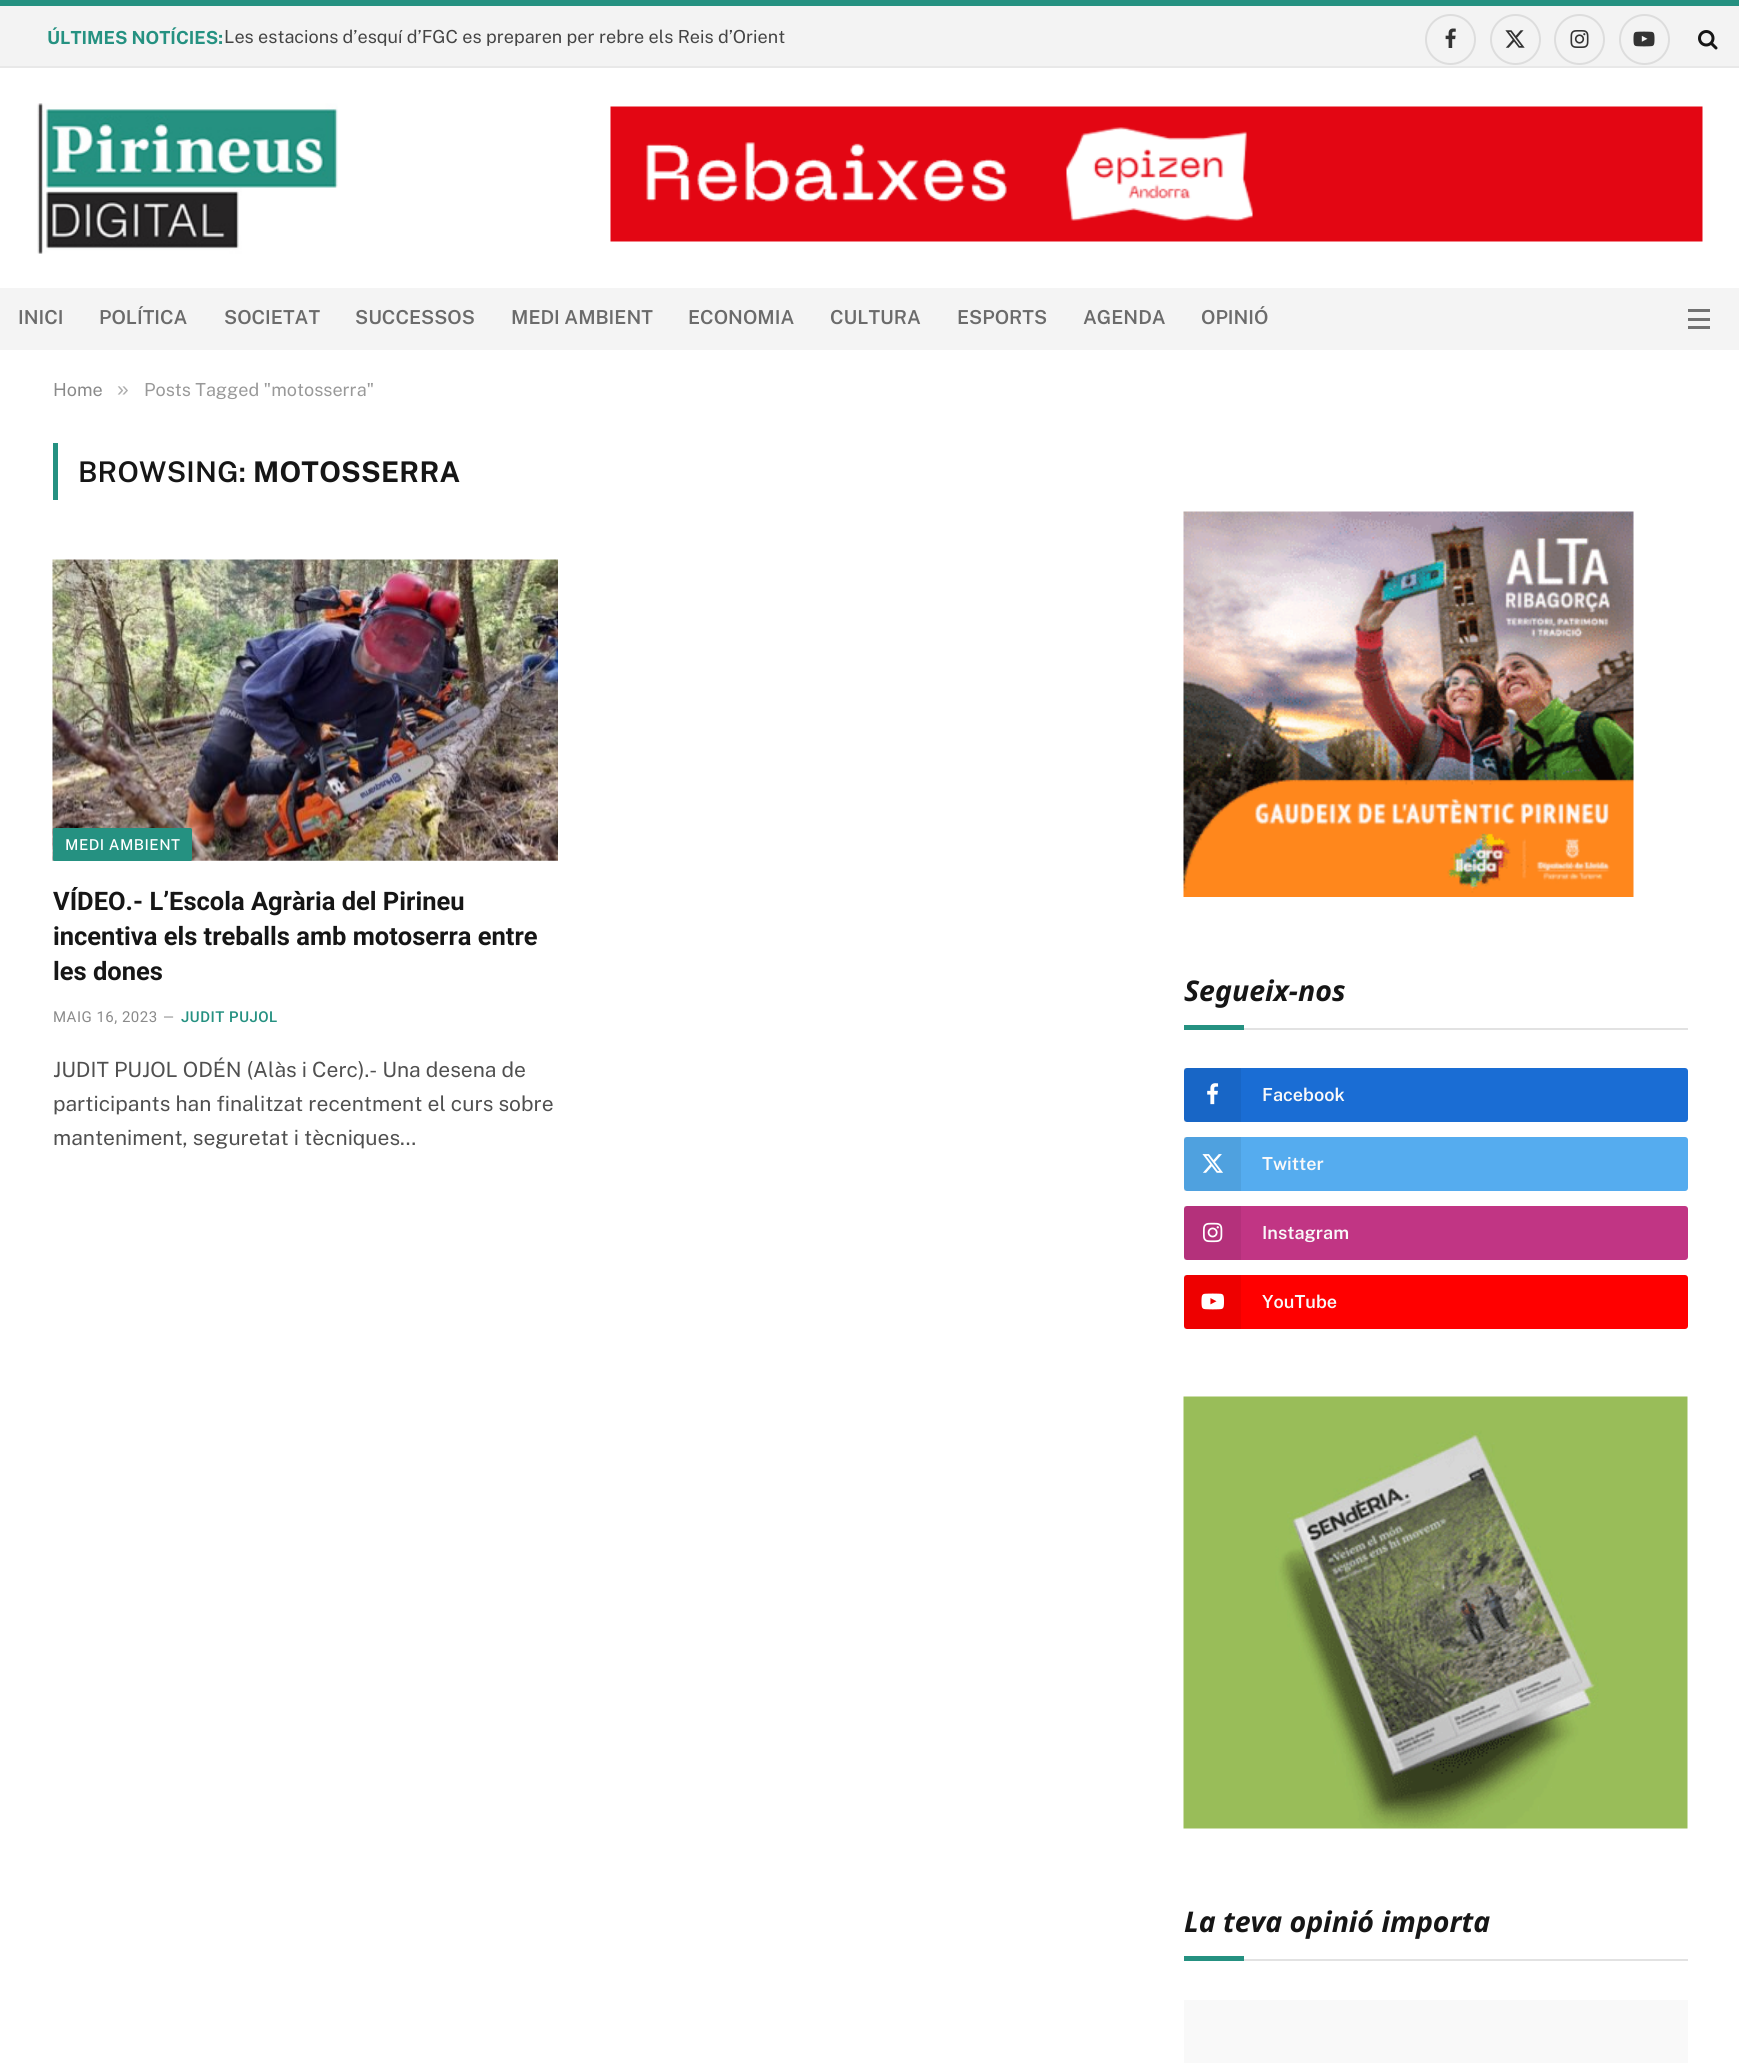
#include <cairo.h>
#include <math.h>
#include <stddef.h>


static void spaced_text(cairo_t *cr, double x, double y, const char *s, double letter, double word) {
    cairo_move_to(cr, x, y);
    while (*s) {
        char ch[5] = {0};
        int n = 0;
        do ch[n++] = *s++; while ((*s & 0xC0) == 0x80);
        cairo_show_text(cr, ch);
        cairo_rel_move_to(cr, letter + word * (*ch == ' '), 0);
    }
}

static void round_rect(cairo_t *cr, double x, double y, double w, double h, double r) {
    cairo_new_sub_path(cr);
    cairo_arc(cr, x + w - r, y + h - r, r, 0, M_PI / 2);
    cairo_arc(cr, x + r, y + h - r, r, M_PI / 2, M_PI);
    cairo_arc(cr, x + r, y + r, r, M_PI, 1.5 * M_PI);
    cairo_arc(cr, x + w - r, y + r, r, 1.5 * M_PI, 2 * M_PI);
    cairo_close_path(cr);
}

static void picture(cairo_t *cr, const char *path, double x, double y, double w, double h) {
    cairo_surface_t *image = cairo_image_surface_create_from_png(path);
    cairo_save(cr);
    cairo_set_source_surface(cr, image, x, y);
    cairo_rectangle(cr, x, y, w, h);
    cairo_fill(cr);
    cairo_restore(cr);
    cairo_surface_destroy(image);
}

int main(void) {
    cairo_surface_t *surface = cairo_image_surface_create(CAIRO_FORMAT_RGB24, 1739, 2063);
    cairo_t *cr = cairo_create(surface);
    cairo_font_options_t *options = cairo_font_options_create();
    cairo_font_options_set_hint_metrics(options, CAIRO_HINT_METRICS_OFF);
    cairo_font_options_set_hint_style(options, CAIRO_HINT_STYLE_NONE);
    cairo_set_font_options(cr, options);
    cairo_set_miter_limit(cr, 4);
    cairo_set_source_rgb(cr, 1, 1, 1);
    cairo_paint(cr);
    cairo_set_source_rgb(cr, 0.953, 0.953, 0.953);
    cairo_rectangle(cr, 0, 6, 1739, 60);
    cairo_fill(cr);
    cairo_set_source_rgb(cr, 0.145, 0.569, 0.506);
    cairo_rectangle(cr, 0, 0, 1739, 6);
    cairo_fill(cr);
    cairo_set_source_rgb(cr, 0.91, 0.91, 0.91);
    cairo_rectangle(cr, 0, 66, 1739, 2);
    cairo_fill(cr);
    cairo_select_font_face(cr, "Public Sans", CAIRO_FONT_SLANT_NORMAL, CAIRO_FONT_WEIGHT_BOLD);
    cairo_set_font_size(cr, 18);
    cairo_set_source_rgb(cr, 0.145, 0.569, 0.506);
    cairo_move_to(cr, 47, 44);
    cairo_show_text(cr, "ÚLTIMES NOTÍCIES:");
    cairo_select_font_face(cr, "Public Sans", CAIRO_FONT_SLANT_NORMAL, CAIRO_FONT_WEIGHT_NORMAL);
    cairo_set_source_rgb(cr, 0.267, 0.267, 0.267);
    cairo_move_to(cr, 224, 43);
    cairo_show_text(cr, "Les estacions d’esquí d’FGC es preparen per rebre els Reis d’Orient");
    cairo_new_path(cr);
    cairo_arc(cr, 1450.5, 39.5, 24.5, 0, 2 * M_PI);
    cairo_set_source_rgb(cr, 0.867, 0.867, 0.867);
    cairo_stroke(cr);
    picture(cr, "img1.png", 1445, 28, 11, 20);
    cairo_arc(cr, 1515.5, 39.5, 24.5, 0, 2 * M_PI);
    cairo_stroke(cr);
    picture(cr, "img2.png", 1505, 30, 20, 18);
    cairo_arc(cr, 1579.5, 39.5, 24.5, 0, 2 * M_PI);
    cairo_stroke(cr);
    picture(cr, "img3.png", 1570, 30, 19, 18);
    cairo_arc(cr, 1644.5, 39.5, 24.5, 0, 2 * M_PI);
    cairo_stroke(cr);
    picture(cr, "img4.png", 1633, 31, 22, 16);
    picture(cr, "img5.png", 1698, 30, 20, 20);
    picture(cr, "img6.png", 37, 103, 301, 151);
    picture(cr, "img7.png", 610, 106, 1093, 136);
    cairo_set_source_rgb(cr, 0.957, 0.957, 0.957);
    cairo_rectangle(cr, 0, 288, 1739, 62);
    cairo_fill(cr);
    cairo_select_font_face(cr, "Public Sans SemiBold", CAIRO_FONT_SLANT_NORMAL, CAIRO_FONT_WEIGHT_NORMAL);
    cairo_set_font_size(cr, 19.25);
    cairo_set_source_rgb(cr, 0.42, 0.42, 0.42);
    cairo_move_to(cr, 18, 324);
    cairo_show_text(cr, "INICI");
    cairo_move_to(cr, 99, 324);
    cairo_show_text(cr, "POLÍTICA");
    cairo_move_to(cr, 224, 324);
    cairo_show_text(cr, "SOCIETAT");
    cairo_move_to(cr, 355, 324);
    cairo_show_text(cr, "SUCCESSOS");
    cairo_move_to(cr, 511, 324);
    cairo_show_text(cr, "MEDI AMBIENT");
    cairo_move_to(cr, 688, 324);
    cairo_show_text(cr, "ECONOMIA");
    cairo_move_to(cr, 830, 324);
    cairo_show_text(cr, "CULTURA");
    cairo_move_to(cr, 957, 324);
    cairo_show_text(cr, "ESPORTS");
    cairo_move_to(cr, 1083, 324);
    cairo_show_text(cr, "AGENDA");
    cairo_move_to(cr, 1201, 324);
    cairo_show_text(cr, "OPINIÓ");
    cairo_set_source_rgb(cr, 0.447, 0.447, 0.447);
    cairo_rectangle(cr, 1688, 326, 22, 3);
    cairo_fill(cr);
    cairo_rectangle(cr, 1688, 309, 22, 3);
    cairo_fill(cr);
    cairo_rectangle(cr, 1688, 318, 22, 3);
    cairo_fill(cr);
    cairo_select_font_face(cr, "Public Sans", CAIRO_FONT_SLANT_NORMAL, CAIRO_FONT_WEIGHT_NORMAL);
    cairo_set_font_size(cr, 18);
    cairo_set_source_rgb(cr, 0.541, 0.541, 0.541);
    cairo_move_to(cr, 53, 396);
    cairo_show_text(cr, "Home");
    cairo_select_font_face(cr, "Liberation Sans", CAIRO_FONT_SLANT_NORMAL, CAIRO_FONT_WEIGHT_NORMAL);
    cairo_set_font_size(cr, 21);
    cairo_set_source_rgb(cr, 0.678, 0.678, 0.678);
    cairo_move_to(cr, 117, 396);
    cairo_show_text(cr, "»");
    cairo_select_font_face(cr, "Public Sans", CAIRO_FONT_SLANT_NORMAL, CAIRO_FONT_WEIGHT_NORMAL);
    cairo_set_font_size(cr, 18);
    cairo_set_source_rgb(cr, 0.6, 0.6, 0.6);
    cairo_move_to(cr, 144, 396);
    cairo_show_text(cr, "Posts Tagged \"motosserra\"");
    cairo_set_source_rgb(cr, 0.145, 0.569, 0.506);
    cairo_rectangle(cr, 53, 443, 5, 57);
    cairo_fill(cr);
    cairo_select_font_face(cr, "Public Sans SemiBold", CAIRO_FONT_SLANT_NORMAL, CAIRO_FONT_WEIGHT_NORMAL);
    cairo_set_font_size(cr, 28.5);
    cairo_set_source_rgb(cr, 0.086, 0.086, 0.086);
    spaced_text(cr, 78, 482, "BROWSING:", 0.25, 0);
    cairo_select_font_face(cr, "Public Sans", CAIRO_FONT_SLANT_NORMAL, CAIRO_FONT_WEIGHT_BOLD);
    spaced_text(cr, 253, 482, "MOTOSSERRA", 0.25, 0);
    picture(cr, "img8.png", 52, 559, 506, 302);
    cairo_set_source_rgb(cr, 0.145, 0.569, 0.506);
    round_rect(cr, 53, 828, 139, 33, 1.5);
    cairo_fill(cr);
    cairo_select_font_face(cr, "Public Sans Medium", CAIRO_FONT_SLANT_NORMAL, CAIRO_FONT_WEIGHT_NORMAL);
    cairo_set_font_size(cr, 15);
    cairo_set_source_rgb(cr, 1, 1, 1);
    spaced_text(cr, 65, 850, "MEDI AMBIENT", 0.5, 0);
    cairo_select_font_face(cr, "Roboto", CAIRO_FONT_SLANT_NORMAL, CAIRO_FONT_WEIGHT_BOLD);
    cairo_set_font_size(cr, 25.5);
    cairo_set_source_rgb(cr, 0.086, 0.086, 0.086);
    cairo_move_to(cr, 53, 910);
    cairo_show_text(cr, "VÍDEO.- L’Escola Agrària del Pirineu");
    cairo_move_to(cr, 53, 945);
    cairo_show_text(cr, "incentiva els treballs amb motoserra entre");
    cairo_move_to(cr, 53, 980);
    cairo_show_text(cr, "les dones");
    cairo_select_font_face(cr, "Roboto", CAIRO_FONT_SLANT_NORMAL, CAIRO_FONT_WEIGHT_NORMAL);
    cairo_set_font_size(cr, 15);
    cairo_set_source_rgb(cr, 0.541, 0.541, 0.541);
    spaced_text(cr, 53, 1022, "MAIG 16, 2023", 0.5, 0);
    cairo_set_font_size(cr, 14);
    cairo_move_to(cr, 163, 1022);
    cairo_show_text(cr, "—");
    cairo_select_font_face(cr, "Roboto Medium", CAIRO_FONT_SLANT_NORMAL, CAIRO_FONT_WEIGHT_NORMAL);
    cairo_set_font_size(cr, 15);
    cairo_set_source_rgb(cr, 0.145, 0.569, 0.506);
    spaced_text(cr, 181, 1022, "JUDIT PUJOL", 0.5, 0);
    cairo_select_font_face(cr, "Public Sans", CAIRO_FONT_SLANT_NORMAL, CAIRO_FONT_WEIGHT_NORMAL);
    cairo_set_font_size(cr, 21);
    cairo_set_source_rgb(cr, 0.314, 0.314, 0.314);
    cairo_move_to(cr, 53, 1077);
    cairo_show_text(cr, "JUDIT PUJOL ODÉN (Alàs i Cerc).- Una desena de");
    cairo_move_to(cr, 53, 1111);
    cairo_show_text(cr, "participants han finalitzat recentment el curs sobre");
    cairo_move_to(cr, 53, 1145);
    cairo_show_text(cr, "manteniment, seguretat i tècniques…");
    picture(cr, "img9.png", 1183, 511, 451, 386);
    cairo_set_source_rgb(cr, 0.886, 0.886, 0.886);
    cairo_rectangle(cr, 1244, 1028, 444, 2);
    cairo_fill(cr);
    cairo_select_font_face(cr, "Noto Sans", CAIRO_FONT_SLANT_ITALIC, CAIRO_FONT_WEIGHT_BOLD);
    cairo_set_font_size(cr, 28.5);
    cairo_set_source_rgb(cr, 0.086, 0.086, 0.086);
    cairo_move_to(cr, 1184, 1001);
    cairo_show_text(cr, "Segueix-nos");
    cairo_set_source_rgb(cr, 0.145, 0.569, 0.506);
    cairo_rectangle(cr, 1184, 1025, 60, 5);
    cairo_fill(cr);
    cairo_set_source_rgb(cr, 0.102, 0.427, 0.831);
    round_rect(cr, 1184, 1068, 504, 54, 3);
    cairo_fill(cr);
    cairo_set_source_rgba(cr, 0, 0, 0, 0.07);
    cairo_rectangle(cr, 1184, 1068, 57, 54);
    cairo_fill(cr);
    picture(cr, "img10.png", 1207, 1083, 12, 22);
    cairo_select_font_face(cr, "Public Sans SemiBold", CAIRO_FONT_SLANT_NORMAL, CAIRO_FONT_WEIGHT_NORMAL);
    cairo_set_font_size(cr, 18);
    cairo_set_source_rgb(cr, 0.973, 0.973, 0.973);
    cairo_move_to(cr, 1262, 1101);
    cairo_show_text(cr, "Facebook");
    cairo_set_source_rgb(cr, 0.333, 0.675, 0.937);
    round_rect(cr, 1184, 1137, 504, 54, 3);
    cairo_fill(cr);
    cairo_set_source_rgba(cr, 0, 0, 0, 0.07);
    cairo_rectangle(cr, 1184, 1137, 57, 54);
    cairo_fill(cr);
    picture(cr, "img11.png", 1202, 1154, 21, 19);
    cairo_set_source_rgb(cr, 0.973, 0.973, 0.973);
    cairo_move_to(cr, 1262, 1170);
    cairo_show_text(cr, "Twitter");
    cairo_set_source_rgb(cr, 0.757, 0.208, 0.518);
    round_rect(cr, 1184, 1206, 504, 54, 3);
    cairo_fill(cr);
    cairo_set_source_rgba(cr, 0, 0, 0, 0.07);
    cairo_rectangle(cr, 1184, 1206, 57, 54);
    cairo_fill(cr);
    picture(cr, "img12.png", 1203, 1222, 20, 21);
    cairo_set_source_rgb(cr, 0.973, 0.973, 0.973);
    cairo_move_to(cr, 1262, 1239);
    cairo_show_text(cr, "Instagram");
    cairo_set_source_rgb(cr, 1, 0, 0);
    round_rect(cr, 1184, 1275, 504, 54, 3);
    cairo_fill(cr);
    cairo_set_source_rgba(cr, 0, 0, 0, 0.07);
    cairo_rectangle(cr, 1184, 1275, 57, 54);
    cairo_fill(cr);
    picture(cr, "img13.png", 1201, 1293, 23, 17);
    cairo_set_source_rgb(cr, 0.973, 0.973, 0.973);
    cairo_move_to(cr, 1262, 1308);
    cairo_show_text(cr, "YouTube");
    picture(cr, "img14.png", 1183, 1396, 505, 433);
    cairo_set_source_rgb(cr, 0.886, 0.886, 0.886);
    cairo_rectangle(cr, 1244, 1959, 444, 2);
    cairo_fill(cr);
    cairo_select_font_face(cr, "Noto Sans", CAIRO_FONT_SLANT_ITALIC, CAIRO_FONT_WEIGHT_BOLD);
    cairo_set_font_size(cr, 28.5);
    cairo_set_source_rgb(cr, 0.086, 0.086, 0.086);
    cairo_move_to(cr, 1184, 1932);
    cairo_show_text(cr, "La teva opinió importa");
    cairo_set_source_rgb(cr, 0.145, 0.569, 0.506);
    cairo_rectangle(cr, 1184, 1956, 60, 5);
    cairo_fill(cr);
    cairo_set_source_rgb(cr, 0.973, 0.973, 0.973);
    cairo_rectangle(cr, 1184, 2000, 504, 63);
    cairo_fill(cr);
    cairo_surface_write_to_png(surface, "page.png");
    cairo_font_options_destroy(options);
    cairo_destroy(cr);
    cairo_surface_destroy(surface);
    return 0;
}
